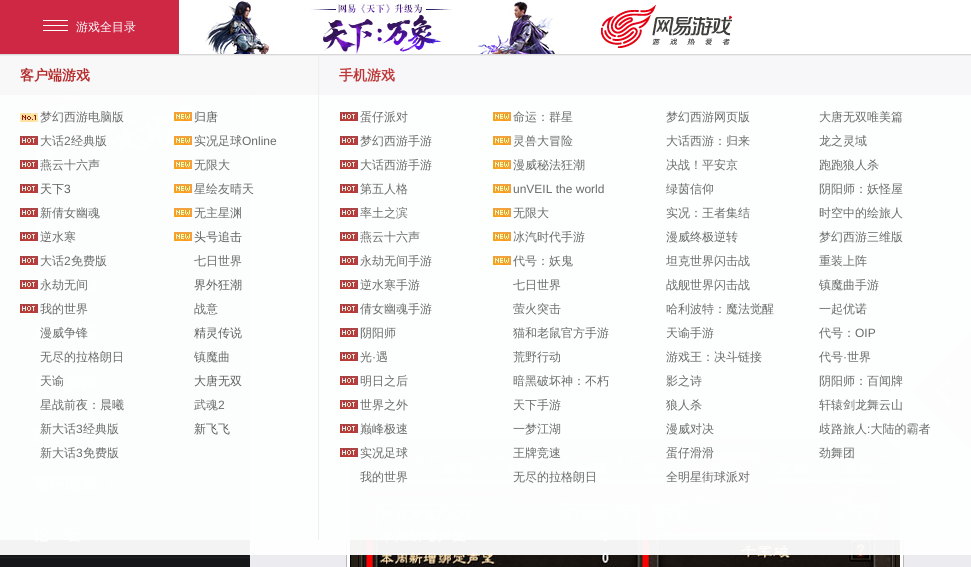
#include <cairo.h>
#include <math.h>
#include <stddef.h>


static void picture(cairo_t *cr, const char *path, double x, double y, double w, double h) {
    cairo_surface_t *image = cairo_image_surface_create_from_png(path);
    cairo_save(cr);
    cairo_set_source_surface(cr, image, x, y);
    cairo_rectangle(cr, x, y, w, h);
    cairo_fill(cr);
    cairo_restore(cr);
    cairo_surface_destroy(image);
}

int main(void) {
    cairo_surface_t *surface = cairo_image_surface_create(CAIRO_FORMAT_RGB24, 971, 567);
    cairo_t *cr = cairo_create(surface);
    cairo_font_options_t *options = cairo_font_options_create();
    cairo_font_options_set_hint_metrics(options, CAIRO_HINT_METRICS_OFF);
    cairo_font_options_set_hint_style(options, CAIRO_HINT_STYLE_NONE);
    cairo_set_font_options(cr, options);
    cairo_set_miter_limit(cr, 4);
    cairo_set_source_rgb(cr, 0.922, 0.925, 0.941);
    cairo_paint(cr);
    cairo_set_source_rgb(cr, 1, 1, 1);
    cairo_rectangle(cr, 179, 0, 792, 54);
    cairo_fill(cr);
    cairo_set_source_rgb(cr, 0.808, 0.157, 0.271);
    cairo_rectangle(cr, 0, 0, 179, 54);
    cairo_fill(cr);
    picture(cr, "img1.png", 43, 20, 25, 11);
    cairo_select_font_face(cr, "WenQuanYi Zen Hei Medium", CAIRO_FONT_SLANT_NORMAL, CAIRO_FONT_WEIGHT_NORMAL);
    cairo_set_font_size(cr, 12);
    cairo_set_source_rgb(cr, 1, 1, 1);
    cairo_move_to(cr, 76, 31);
    cairo_show_text(cr, "游戏全目录");
    picture(cr, "img2.png", 205, 1, 351, 53);
    picture(cr, "img3.png", 601, 5, 131, 43);
    cairo_set_source_rgb(cr, 0.996, 0.996, 0.996);
    cairo_rectangle(cr, 250, 95, 721, 460);
    cairo_fill(cr);
    cairo_set_source_rgb(cr, 0.953, 0.953, 0.957);
    cairo_rectangle(cr, 0, 95, 250, 362);
    cairo_fill(cr);
    picture(cr, "img21.png", 31, 95, 188, 68);
    picture(cr, "img22.png", 0, 207, 250, 50);
    picture(cr, "img23.png", 0, 257, 250, 50);
    picture(cr, "img24.png", 0, 307, 250, 50);
    picture(cr, "img25.png", 1, 357, 249, 34);
    picture(cr, "img26.png", 0, 407, 250, 40);
    picture(cr, "img27.png", 0, 457, 250, 50);
    picture(cr, "img28.png", 0, 507, 250, 49);
    picture(cr, "img29.png", 290, 170, 670, 5);
    picture(cr, "img30.png", 290, 125, 120, 29);
    picture(cr, "img31.png", 290, 190, 670, 54);
    picture(cr, "img32.png", 371, 214, 7, 5);
    picture(cr, "img33.png", 657, 328, 16, 16);
    picture(cr, "img34.png", 678, 328, 16, 16);
    cairo_set_source_rgb(cr, 0.988, 0.984, 0.984);
    cairo_rectangle(cr, 346, 434, 558, 1);
    cairo_fill(cr);
    cairo_rectangle(cr, 903, 434, 1, 121);
    cairo_fill(cr);
    cairo_rectangle(cr, 346, 434, 1, 121);
    cairo_fill(cr);
    cairo_set_source_rgb(cr, 1, 1, 1);
    cairo_rectangle(cr, 347, 555, 556, 12);
    cairo_fill(cr);
    picture(cr, "img35.png", 350, 438, 550, 129);
    picture(cr, "img36.png", 912, 332, 59, 118);
    cairo_set_source_rgba(cr, 0.992, 0.996, 0.996, 0.95);
    cairo_rectangle(cr, 0, 95, 971, 445);
    cairo_fill(cr);
    cairo_set_source_rgb(cr, 0.929, 0.929, 0.929);
    cairo_rectangle(cr, 0, 55, 971, 1);
    cairo_fill(cr);
    cairo_set_source_rgb(cr, 0.933, 0.933, 0.933);
    cairo_rectangle(cr, 318, 56, 1, 39);
    cairo_fill(cr);
    cairo_set_source_rgb(cr, 0.969, 0.969, 0.973);
    cairo_rectangle(cr, 0, 56, 318, 39);
    cairo_fill(cr);
    cairo_select_font_face(cr, "WenQuanYi Zen Hei", CAIRO_FONT_SLANT_NORMAL, CAIRO_FONT_WEIGHT_BOLD);
    cairo_set_font_size(cr, 14);
    cairo_set_source_rgb(cr, 0.706, 0.176, 0.176);
    cairo_move_to(cr, 20, 80);
    cairo_show_text(cr, "客户端游戏");
    cairo_set_source_rgb(cr, 0.965, 0.965, 0.973);
    cairo_rectangle(cr, 319, 56, 652, 39);
    cairo_fill(cr);
    cairo_set_source_rgb(cr, 0.745, 0.22, 0.22);
    cairo_move_to(cr, 339, 80);
    cairo_show_text(cr, "手机游戏");
    picture(cr, "img4.png", 20, 113, 18, 9);
    cairo_select_font_face(cr, "WenQuanYi Zen Hei Medium", CAIRO_FONT_SLANT_NORMAL, CAIRO_FONT_WEIGHT_NORMAL);
    cairo_set_font_size(cr, 12);
    cairo_set_source_rgb(cr, 0.416, 0.416, 0.416);
    cairo_move_to(cr, 40, 121);
    cairo_show_text(cr, "梦幻西游电脑版");
    picture(cr, "img5.png", 20, 136, 18, 9);
    cairo_move_to(cr, 40, 145);
    cairo_show_text(cr, "大话");
    cairo_select_font_face(cr, "Liberation Sans", CAIRO_FONT_SLANT_NORMAL, CAIRO_FONT_WEIGHT_NORMAL);
    cairo_move_to(cr, 64, 145);
    cairo_show_text(cr, "2");
    cairo_select_font_face(cr, "WenQuanYi Zen Hei Medium", CAIRO_FONT_SLANT_NORMAL, CAIRO_FONT_WEIGHT_NORMAL);
    cairo_move_to(cr, 71, 145);
    cairo_show_text(cr, "经典版");
    picture(cr, "img5.png", 20, 160, 18, 9);
    cairo_move_to(cr, 40, 169);
    cairo_show_text(cr, "燕云十六声");
    picture(cr, "img5.png", 20, 184, 18, 9);
    cairo_set_source_rgb(cr, 0.369, 0.369, 0.369);
    cairo_move_to(cr, 40, 193);
    cairo_show_text(cr, "天下");
    cairo_select_font_face(cr, "Liberation Sans", CAIRO_FONT_SLANT_NORMAL, CAIRO_FONT_WEIGHT_NORMAL);
    cairo_move_to(cr, 64, 193);
    cairo_show_text(cr, "3");
    picture(cr, "img5.png", 20, 208, 18, 9);
    cairo_select_font_face(cr, "WenQuanYi Zen Hei Medium", CAIRO_FONT_SLANT_NORMAL, CAIRO_FONT_WEIGHT_NORMAL);
    cairo_set_source_rgb(cr, 0.416, 0.416, 0.416);
    cairo_move_to(cr, 40, 217);
    cairo_show_text(cr, "新倩女幽魂");
    picture(cr, "img6.png", 20, 232, 18, 9);
    cairo_move_to(cr, 40, 241);
    cairo_show_text(cr, "逆水寒");
    picture(cr, "img7.png", 20, 256, 18, 9);
    cairo_move_to(cr, 40, 265);
    cairo_show_text(cr, "大话");
    cairo_select_font_face(cr, "Liberation Sans", CAIRO_FONT_SLANT_NORMAL, CAIRO_FONT_WEIGHT_NORMAL);
    cairo_move_to(cr, 64, 265);
    cairo_show_text(cr, "2");
    cairo_select_font_face(cr, "WenQuanYi Zen Hei Medium", CAIRO_FONT_SLANT_NORMAL, CAIRO_FONT_WEIGHT_NORMAL);
    cairo_move_to(cr, 71, 265);
    cairo_show_text(cr, "免费版");
    picture(cr, "img6.png", 20, 280, 18, 9);
    cairo_move_to(cr, 40, 289);
    cairo_show_text(cr, "永劫无间");
    picture(cr, "img8.png", 20, 304, 18, 9);
    cairo_move_to(cr, 40, 313);
    cairo_show_text(cr, "我的世界");
    cairo_move_to(cr, 40, 337);
    cairo_show_text(cr, "漫威争锋");
    cairo_move_to(cr, 40, 361);
    cairo_show_text(cr, "无尽的拉格朗日");
    cairo_move_to(cr, 40, 385);
    cairo_show_text(cr, "天谕");
    cairo_move_to(cr, 40, 409);
    cairo_show_text(cr, "星战前夜：晨曦");
    cairo_move_to(cr, 40, 433);
    cairo_show_text(cr, "新大话");
    cairo_select_font_face(cr, "Liberation Sans", CAIRO_FONT_SLANT_NORMAL, CAIRO_FONT_WEIGHT_NORMAL);
    cairo_move_to(cr, 76, 433);
    cairo_show_text(cr, "3");
    cairo_select_font_face(cr, "WenQuanYi Zen Hei Medium", CAIRO_FONT_SLANT_NORMAL, CAIRO_FONT_WEIGHT_NORMAL);
    cairo_move_to(cr, 83, 433);
    cairo_show_text(cr, "经典版");
    cairo_move_to(cr, 40, 457);
    cairo_show_text(cr, "新大话");
    cairo_select_font_face(cr, "Liberation Sans", CAIRO_FONT_SLANT_NORMAL, CAIRO_FONT_WEIGHT_NORMAL);
    cairo_move_to(cr, 76, 457);
    cairo_show_text(cr, "3");
    cairo_select_font_face(cr, "WenQuanYi Zen Hei Medium", CAIRO_FONT_SLANT_NORMAL, CAIRO_FONT_WEIGHT_NORMAL);
    cairo_move_to(cr, 83, 457);
    cairo_show_text(cr, "免费版");
    cairo_set_source_rgb(cr, 0.937, 0.937, 0.937);
    cairo_rectangle(cr, 318, 95, 1, 445);
    cairo_fill(cr);
    picture(cr, "img9.png", 174, 112, 18, 9);
    cairo_set_source_rgb(cr, 0.369, 0.369, 0.369);
    cairo_move_to(cr, 194, 121);
    cairo_show_text(cr, "归唐");
    picture(cr, "img10.png", 174, 136, 18, 9);
    cairo_set_source_rgb(cr, 0.416, 0.416, 0.416);
    cairo_move_to(cr, 194, 145);
    cairo_show_text(cr, "实况足球");
    cairo_select_font_face(cr, "Liberation Sans", CAIRO_FONT_SLANT_NORMAL, CAIRO_FONT_WEIGHT_NORMAL);
    cairo_move_to(cr, 242, 145);
    cairo_show_text(cr, "Online");
    picture(cr, "img11.png", 174, 160, 18, 9);
    cairo_select_font_face(cr, "WenQuanYi Zen Hei Medium", CAIRO_FONT_SLANT_NORMAL, CAIRO_FONT_WEIGHT_NORMAL);
    cairo_move_to(cr, 194, 169);
    cairo_show_text(cr, "无限大");
    picture(cr, "img11.png", 174, 184, 18, 9);
    cairo_move_to(cr, 194, 193);
    cairo_show_text(cr, "星绘友晴天");
    picture(cr, "img11.png", 174, 208, 18, 9);
    cairo_move_to(cr, 194, 217);
    cairo_show_text(cr, "无主星渊");
    picture(cr, "img11.png", 174, 232, 18, 9);
    cairo_set_source_rgb(cr, 0.369, 0.369, 0.369);
    cairo_move_to(cr, 194, 241);
    cairo_show_text(cr, "头号追击");
    cairo_set_source_rgb(cr, 0.416, 0.416, 0.416);
    cairo_move_to(cr, 194, 265);
    cairo_show_text(cr, "七日世界");
    cairo_set_source_rgb(cr, 0.369, 0.369, 0.369);
    cairo_move_to(cr, 194, 289);
    cairo_show_text(cr, "界外狂潮");
    cairo_set_source_rgb(cr, 0.416, 0.416, 0.416);
    cairo_move_to(cr, 194, 313);
    cairo_show_text(cr, "战意");
    cairo_set_source_rgb(cr, 0.369, 0.369, 0.369);
    cairo_move_to(cr, 194, 337);
    cairo_show_text(cr, "精灵传说");
    cairo_set_source_rgb(cr, 0.416, 0.416, 0.416);
    cairo_move_to(cr, 194, 361);
    cairo_show_text(cr, "镇魔曲");
    cairo_set_source_rgb(cr, 0.369, 0.369, 0.369);
    cairo_move_to(cr, 194, 385);
    cairo_show_text(cr, "大唐无双");
    cairo_set_source_rgb(cr, 0.416, 0.416, 0.416);
    cairo_move_to(cr, 194, 409);
    cairo_show_text(cr, "武魂");
    cairo_select_font_face(cr, "Liberation Sans", CAIRO_FONT_SLANT_NORMAL, CAIRO_FONT_WEIGHT_NORMAL);
    cairo_move_to(cr, 218, 409);
    cairo_show_text(cr, "2");
    cairo_select_font_face(cr, "WenQuanYi Zen Hei Medium", CAIRO_FONT_SLANT_NORMAL, CAIRO_FONT_WEIGHT_NORMAL);
    cairo_set_source_rgb(cr, 0.369, 0.369, 0.369);
    cairo_move_to(cr, 194, 433);
    cairo_show_text(cr, "新飞飞");
    picture(cr, "img12.png", 340, 112, 18, 9);
    cairo_set_source_rgb(cr, 0.416, 0.416, 0.416);
    cairo_move_to(cr, 360, 121);
    cairo_show_text(cr, "蛋仔派对");
    picture(cr, "img13.png", 340, 136, 18, 9);
    cairo_move_to(cr, 360, 145);
    cairo_show_text(cr, "梦幻西游手游");
    picture(cr, "img12.png", 340, 160, 18, 9);
    cairo_move_to(cr, 360, 169);
    cairo_show_text(cr, "大话西游手游");
    picture(cr, "img12.png", 340, 184, 18, 9);
    cairo_move_to(cr, 360, 193);
    cairo_show_text(cr, "第五人格");
    picture(cr, "img14.png", 340, 208, 18, 9);
    cairo_move_to(cr, 360, 217);
    cairo_show_text(cr, "率土之滨");
    picture(cr, "img15.png", 340, 232, 18, 9);
    cairo_move_to(cr, 360, 241);
    cairo_show_text(cr, "燕云十六声");
    picture(cr, "img12.png", 340, 256, 18, 9);
    cairo_move_to(cr, 360, 265);
    cairo_show_text(cr, "永劫无间手游");
    picture(cr, "img12.png", 340, 280, 18, 9);
    cairo_move_to(cr, 360, 289);
    cairo_show_text(cr, "逆水寒手游");
    picture(cr, "img12.png", 340, 304, 18, 9);
    cairo_move_to(cr, 360, 313);
    cairo_show_text(cr, "倩女幽魂手游");
    picture(cr, "img12.png", 340, 328, 18, 9);
    cairo_move_to(cr, 360, 337);
    cairo_show_text(cr, "阴阳师");
    picture(cr, "img12.png", 340, 352, 18, 9);
    cairo_move_to(cr, 360, 361);
    cairo_show_text(cr, "光");
    cairo_select_font_face(cr, "Liberation Sans", CAIRO_FONT_SLANT_NORMAL, CAIRO_FONT_WEIGHT_NORMAL);
    cairo_move_to(cr, 372, 361);
    cairo_show_text(cr, "·");
    cairo_select_font_face(cr, "WenQuanYi Zen Hei Medium", CAIRO_FONT_SLANT_NORMAL, CAIRO_FONT_WEIGHT_NORMAL);
    cairo_move_to(cr, 376, 361);
    cairo_show_text(cr, "遇");
    picture(cr, "img12.png", 340, 376, 18, 9);
    cairo_move_to(cr, 360, 385);
    cairo_show_text(cr, "明日之后");
    picture(cr, "img12.png", 340, 400, 18, 9);
    cairo_move_to(cr, 360, 409);
    cairo_show_text(cr, "世界之外");
    picture(cr, "img12.png", 340, 424, 18, 9);
    cairo_move_to(cr, 360, 433);
    cairo_show_text(cr, "巅峰极速");
    picture(cr, "img16.png", 340, 448, 18, 9);
    cairo_move_to(cr, 360, 457);
    cairo_show_text(cr, "实况足球");
    cairo_move_to(cr, 360, 481);
    cairo_show_text(cr, "我的世界");
    picture(cr, "img17.png", 493, 112, 18, 9);
    cairo_move_to(cr, 513, 121);
    cairo_show_text(cr, "命运：群星");
    picture(cr, "img17.png", 493, 136, 18, 9);
    cairo_move_to(cr, 513, 145);
    cairo_show_text(cr, "灵兽大冒险");
    picture(cr, "img17.png", 493, 160, 18, 9);
    cairo_move_to(cr, 513, 169);
    cairo_show_text(cr, "漫威秘法狂潮");
    picture(cr, "img18.png", 493, 184, 18, 9);
    cairo_select_font_face(cr, "Liberation Sans", CAIRO_FONT_SLANT_NORMAL, CAIRO_FONT_WEIGHT_NORMAL);
    cairo_move_to(cr, 513, 193);
    cairo_show_text(cr, "unVEIL the world");
    picture(cr, "img19.png", 493, 208, 18, 9);
    cairo_select_font_face(cr, "WenQuanYi Zen Hei Medium", CAIRO_FONT_SLANT_NORMAL, CAIRO_FONT_WEIGHT_NORMAL);
    cairo_move_to(cr, 513, 217);
    cairo_show_text(cr, "无限大");
    picture(cr, "img20.png", 493, 232, 18, 9);
    cairo_move_to(cr, 513, 241);
    cairo_show_text(cr, "冰汽时代手游");
    picture(cr, "img17.png", 493, 256, 18, 9);
    cairo_move_to(cr, 513, 265);
    cairo_show_text(cr, "代号：妖鬼");
    cairo_move_to(cr, 513, 289);
    cairo_show_text(cr, "七日世界");
    cairo_move_to(cr, 513, 313);
    cairo_show_text(cr, "萤火突击");
    cairo_move_to(cr, 513, 337);
    cairo_show_text(cr, "猫和老鼠官方手游");
    cairo_move_to(cr, 513, 361);
    cairo_show_text(cr, "荒野行动");
    cairo_move_to(cr, 513, 385);
    cairo_show_text(cr, "暗黑破坏神：不朽");
    cairo_move_to(cr, 513, 409);
    cairo_show_text(cr, "天下手游");
    cairo_move_to(cr, 513, 433);
    cairo_show_text(cr, "一梦江湖");
    cairo_move_to(cr, 513, 457);
    cairo_show_text(cr, "王牌竞速");
    cairo_move_to(cr, 513, 481);
    cairo_show_text(cr, "无尽的拉格朗日");
    cairo_move_to(cr, 666, 121);
    cairo_show_text(cr, "梦幻西游网页版");
    cairo_move_to(cr, 666, 145);
    cairo_show_text(cr, "大话西游：归来");
    cairo_move_to(cr, 666, 169);
    cairo_show_text(cr, "决战！平安京");
    cairo_move_to(cr, 666, 193);
    cairo_show_text(cr, "绿茵信仰");
    cairo_move_to(cr, 666, 217);
    cairo_show_text(cr, "实况：王者集结");
    cairo_move_to(cr, 666, 241);
    cairo_show_text(cr, "漫威终极逆转");
    cairo_move_to(cr, 666, 265);
    cairo_show_text(cr, "坦克世界闪击战");
    cairo_move_to(cr, 666, 289);
    cairo_show_text(cr, "战舰世界闪击战");
    cairo_move_to(cr, 666, 313);
    cairo_show_text(cr, "哈利波特：魔法觉醒");
    cairo_move_to(cr, 666, 337);
    cairo_show_text(cr, "天谕手游");
    cairo_move_to(cr, 666, 361);
    cairo_show_text(cr, "游戏王：决斗链接");
    cairo_move_to(cr, 666, 385);
    cairo_show_text(cr, "影之诗");
    cairo_move_to(cr, 666, 409);
    cairo_show_text(cr, "狼人杀");
    cairo_move_to(cr, 666, 433);
    cairo_show_text(cr, "漫威对决");
    cairo_move_to(cr, 666, 457);
    cairo_show_text(cr, "蛋仔滑滑");
    cairo_move_to(cr, 666, 481);
    cairo_show_text(cr, "全明星街球派对");
    cairo_move_to(cr, 819, 121);
    cairo_show_text(cr, "大唐无双唯美篇");
    cairo_move_to(cr, 819, 145);
    cairo_show_text(cr, "龙之灵域");
    cairo_move_to(cr, 819, 169);
    cairo_show_text(cr, "跑跑狼人杀");
    cairo_move_to(cr, 819, 193);
    cairo_show_text(cr, "阴阳师：妖怪屋");
    cairo_move_to(cr, 819, 217);
    cairo_show_text(cr, "时空中的绘旅人");
    cairo_move_to(cr, 819, 241);
    cairo_show_text(cr, "梦幻西游三维版");
    cairo_move_to(cr, 819, 265);
    cairo_show_text(cr, "重装上阵");
    cairo_move_to(cr, 819, 289);
    cairo_show_text(cr, "镇魔曲手游");
    cairo_move_to(cr, 819, 313);
    cairo_show_text(cr, "一起优诺");
    cairo_move_to(cr, 819, 337);
    cairo_show_text(cr, "代号：");
    cairo_select_font_face(cr, "Liberation Sans", CAIRO_FONT_SLANT_NORMAL, CAIRO_FONT_WEIGHT_NORMAL);
    cairo_move_to(cr, 855, 337);
    cairo_show_text(cr, "OIP");
    cairo_select_font_face(cr, "WenQuanYi Zen Hei Medium", CAIRO_FONT_SLANT_NORMAL, CAIRO_FONT_WEIGHT_NORMAL);
    cairo_move_to(cr, 819, 361);
    cairo_show_text(cr, "代号");
    cairo_select_font_face(cr, "Liberation Sans", CAIRO_FONT_SLANT_NORMAL, CAIRO_FONT_WEIGHT_NORMAL);
    cairo_move_to(cr, 843, 361);
    cairo_show_text(cr, "·");
    cairo_select_font_face(cr, "WenQuanYi Zen Hei Medium", CAIRO_FONT_SLANT_NORMAL, CAIRO_FONT_WEIGHT_NORMAL);
    cairo_move_to(cr, 847, 361);
    cairo_show_text(cr, "世界");
    cairo_move_to(cr, 819, 385);
    cairo_show_text(cr, "阴阳师：百闻牌");
    cairo_move_to(cr, 819, 409);
    cairo_show_text(cr, "轩辕剑龙舞云山");
    cairo_move_to(cr, 819, 433);
    cairo_show_text(cr, "歧路旅人 大陆的霸者");
    cairo_select_font_face(cr, "Liberation Sans", CAIRO_FONT_SLANT_NORMAL, CAIRO_FONT_WEIGHT_NORMAL);
    cairo_move_to(cr, 867, 433);
    cairo_show_text(cr, ":");
    cairo_select_font_face(cr, "WenQuanYi Zen Hei Medium", CAIRO_FONT_SLANT_NORMAL, CAIRO_FONT_WEIGHT_NORMAL);
    cairo_move_to(cr, 819, 457);
    cairo_show_text(cr, "劲舞团");
    cairo_set_source_rgb(cr, 0.847, 0.847, 0.847);
    cairo_rectangle(cr, 0, 54, 971, 1);
    cairo_fill(cr);
    cairo_set_source_rgb(cr, 0.086, 0.09, 0.098);
    cairo_rectangle(cr, 0, 556, 250, 11);
    cairo_fill(cr);
    cairo_set_source_rgb(cr, 0.122, 0.122, 0.149);
    cairo_rectangle(cr, 0, 557, 250, 1);
    cairo_fill(cr);
    cairo_set_source_rgb(cr, 0.725, 0.714, 0.706);
    cairo_rectangle(cr, 903, 555, 1, 12);
    cairo_fill(cr);
    cairo_rectangle(cr, 346, 555, 1, 12);
    cairo_fill(cr);
    cairo_surface_write_to_png(surface, "page.png");
    cairo_font_options_destroy(options);
    cairo_destroy(cr);
    cairo_surface_destroy(surface);
    return 0;
}
